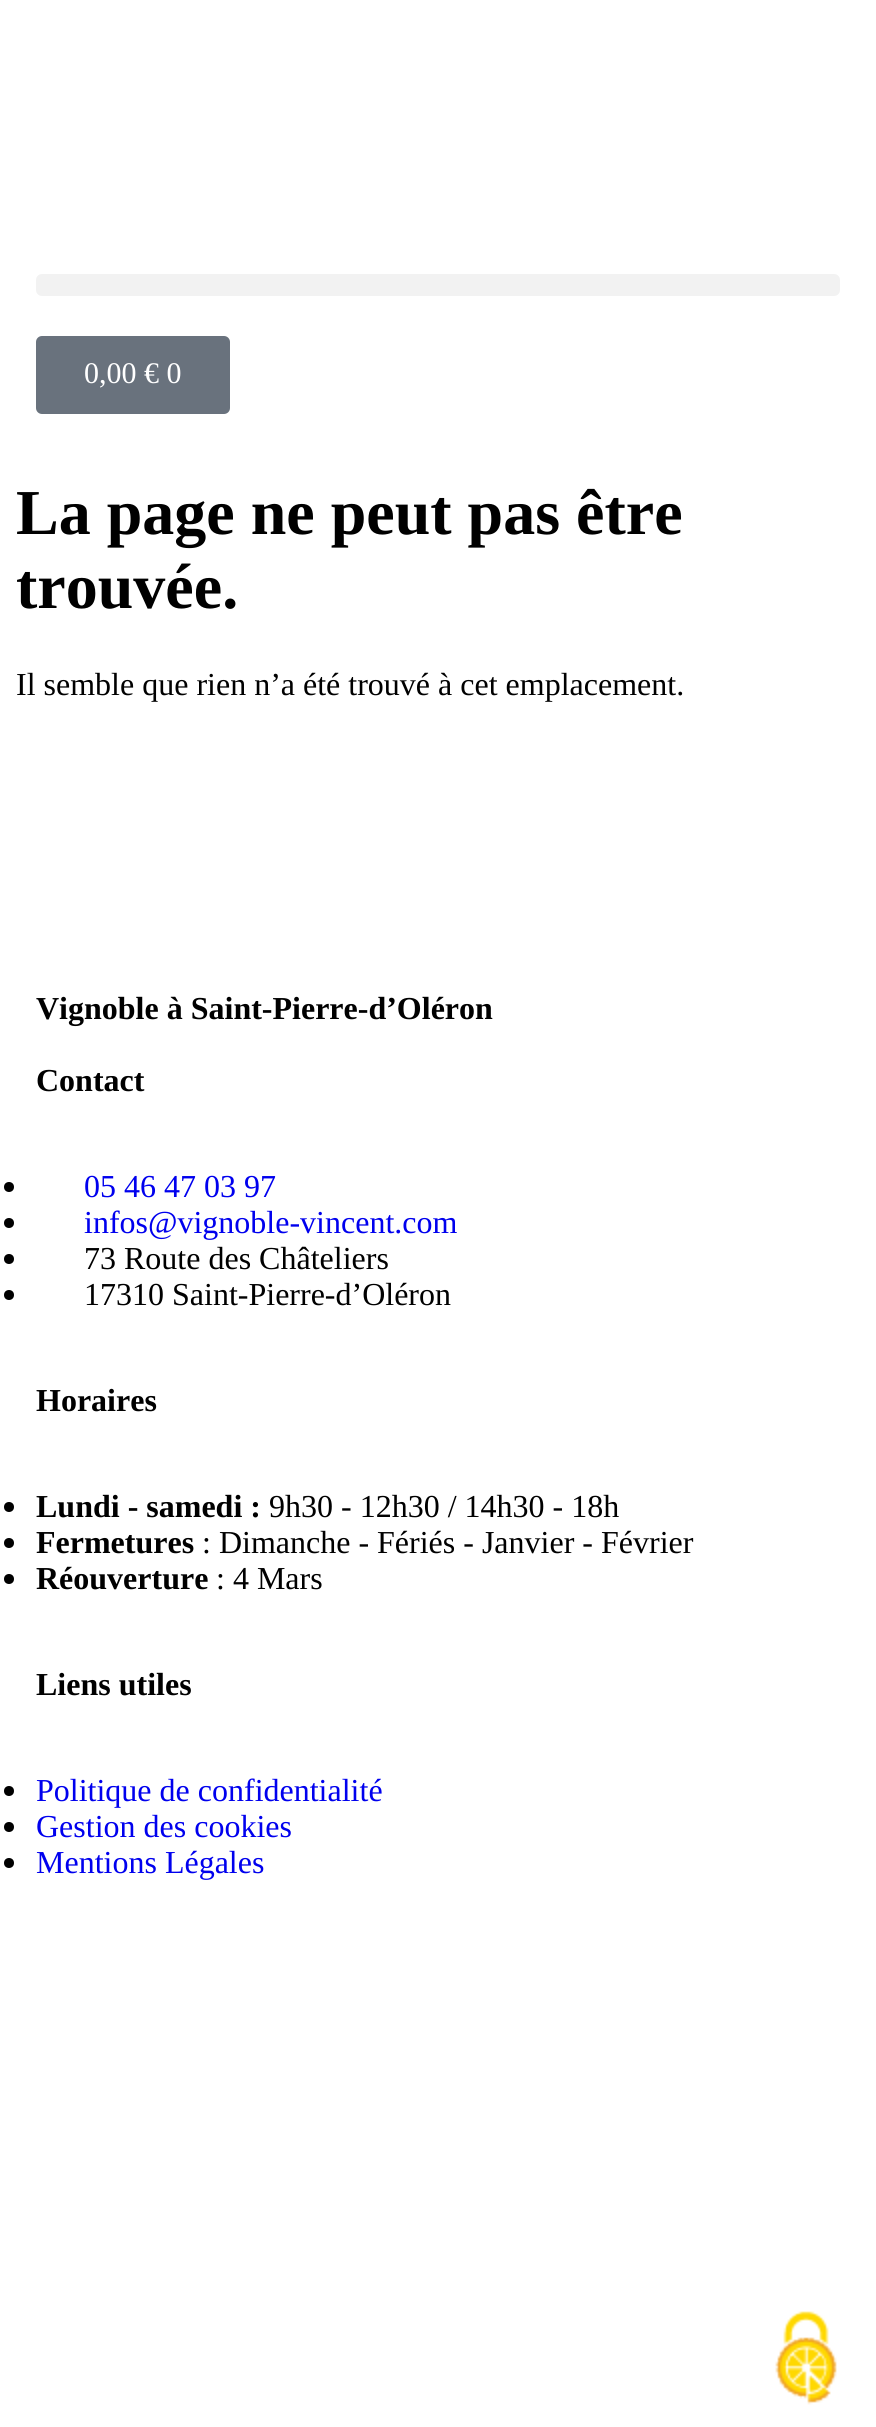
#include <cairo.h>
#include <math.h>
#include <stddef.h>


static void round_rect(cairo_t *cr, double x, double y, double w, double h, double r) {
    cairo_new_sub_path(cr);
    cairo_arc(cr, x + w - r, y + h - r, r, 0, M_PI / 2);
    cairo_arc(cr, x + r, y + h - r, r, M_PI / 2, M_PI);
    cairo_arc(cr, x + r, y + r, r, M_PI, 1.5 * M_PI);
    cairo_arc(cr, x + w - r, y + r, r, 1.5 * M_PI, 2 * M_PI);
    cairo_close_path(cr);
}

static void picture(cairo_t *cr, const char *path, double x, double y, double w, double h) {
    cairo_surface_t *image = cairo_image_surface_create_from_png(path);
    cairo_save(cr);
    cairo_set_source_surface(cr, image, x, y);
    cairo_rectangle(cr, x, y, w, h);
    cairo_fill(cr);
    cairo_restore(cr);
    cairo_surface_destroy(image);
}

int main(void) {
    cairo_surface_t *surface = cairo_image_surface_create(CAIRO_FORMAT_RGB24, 876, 2427);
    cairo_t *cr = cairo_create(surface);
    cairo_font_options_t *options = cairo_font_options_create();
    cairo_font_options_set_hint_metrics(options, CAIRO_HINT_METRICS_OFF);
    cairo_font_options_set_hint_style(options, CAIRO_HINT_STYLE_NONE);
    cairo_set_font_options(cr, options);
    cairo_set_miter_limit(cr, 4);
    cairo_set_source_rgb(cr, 1, 1, 1);
    cairo_paint(cr);
    cairo_set_source_rgb(cr, 0.949, 0.949, 0.949);
    round_rect(cr, 36, 274, 804, 22, 6);
    cairo_fill(cr);
    cairo_set_source_rgb(cr, 0.412, 0.447, 0.49);
    round_rect(cr, 36, 336, 194, 78, 6);
    cairo_fill(cr);
    cairo_select_font_face(cr, "Liberation Serif", CAIRO_FONT_SLANT_NORMAL, CAIRO_FONT_WEIGHT_NORMAL);
    cairo_set_font_size(cr, 30);
    cairo_set_source_rgb(cr, 1, 1, 1);
    cairo_move_to(cr, 84, 383);
    cairo_show_text(cr, "0,00 € 0");
    cairo_select_font_face(cr, "Liberation Serif", CAIRO_FONT_SLANT_NORMAL, CAIRO_FONT_WEIGHT_BOLD);
    cairo_set_font_size(cr, 64);
    cairo_set_source_rgb(cr, 0, 0, 0);
    cairo_move_to(cr, 16, 534);
    cairo_show_text(cr, "La page ne peut pas être");
    cairo_move_to(cr, 16, 608);
    cairo_show_text(cr, "trouvée.");
    cairo_select_font_face(cr, "Liberation Serif", CAIRO_FONT_SLANT_NORMAL, CAIRO_FONT_WEIGHT_NORMAL);
    cairo_set_font_size(cr, 32);
    cairo_move_to(cr, 16, 695);
    cairo_show_text(cr, "Il semble que rien n’a été trouvé à cet emplacement.");
    cairo_select_font_face(cr, "Liberation Serif", CAIRO_FONT_SLANT_NORMAL, CAIRO_FONT_WEIGHT_BOLD);
    cairo_move_to(cr, 36, 1019);
    cairo_show_text(cr, "Vignoble à Saint-Pierre-d’Oléron");
    cairo_move_to(cr, 36, 1091);
    cairo_show_text(cr, "Contact");
    cairo_new_path(cr);
    cairo_arc(cr, 9, 1187, 5, 0, 2 * M_PI);
    cairo_fill(cr);
    cairo_select_font_face(cr, "Liberation Serif", CAIRO_FONT_SLANT_NORMAL, CAIRO_FONT_WEIGHT_NORMAL);
    cairo_set_source_rgb(cr, 0, 0, 0.933);
    cairo_move_to(cr, 84, 1197);
    cairo_show_text(cr, "05 46 47 03 97");
    cairo_set_source_rgb(cr, 0, 0, 0);
    cairo_new_path(cr);
    cairo_arc(cr, 9, 1223, 5, 0, 2 * M_PI);
    cairo_fill(cr);
    cairo_set_source_rgb(cr, 0, 0, 0.933);
    cairo_move_to(cr, 84, 1233);
    cairo_show_text(cr, "infos@vignoble-vincent.com");
    cairo_set_source_rgb(cr, 0, 0, 0);
    cairo_new_path(cr);
    cairo_arc(cr, 9, 1259, 5, 0, 2 * M_PI);
    cairo_fill(cr);
    cairo_move_to(cr, 84, 1269);
    cairo_show_text(cr, "73 Route des Châteliers");
    cairo_new_path(cr);
    cairo_arc(cr, 9, 1295, 5, 0, 2 * M_PI);
    cairo_fill(cr);
    cairo_move_to(cr, 84, 1305);
    cairo_show_text(cr, "17310 Saint-Pierre-d’Oléron");
    cairo_select_font_face(cr, "Liberation Serif", CAIRO_FONT_SLANT_NORMAL, CAIRO_FONT_WEIGHT_BOLD);
    cairo_move_to(cr, 36, 1411);
    cairo_show_text(cr, "Horaires");
    cairo_new_path(cr);
    cairo_arc(cr, 9, 1507, 5, 0, 2 * M_PI);
    cairo_fill(cr);
    cairo_move_to(cr, 36, 1517);
    cairo_show_text(cr, "Lundi - samedi :");
    cairo_select_font_face(cr, "Liberation Serif", CAIRO_FONT_SLANT_NORMAL, CAIRO_FONT_WEIGHT_NORMAL);
    cairo_move_to(cr, 269, 1517);
    cairo_show_text(cr, "9h30 - 12h30 / 14h30 - 18h");
    cairo_new_path(cr);
    cairo_arc(cr, 9, 1543, 5, 0, 2 * M_PI);
    cairo_fill(cr);
    cairo_select_font_face(cr, "Liberation Serif", CAIRO_FONT_SLANT_NORMAL, CAIRO_FONT_WEIGHT_BOLD);
    cairo_move_to(cr, 36, 1553);
    cairo_show_text(cr, "Fermetures");
    cairo_select_font_face(cr, "Liberation Serif", CAIRO_FONT_SLANT_NORMAL, CAIRO_FONT_WEIGHT_NORMAL);
    cairo_move_to(cr, 202, 1553);
    cairo_show_text(cr, ": Dimanche - Fériés - Janvier - Février");
    cairo_new_path(cr);
    cairo_arc(cr, 9, 1579, 5, 0, 2 * M_PI);
    cairo_fill(cr);
    cairo_select_font_face(cr, "Liberation Serif", CAIRO_FONT_SLANT_NORMAL, CAIRO_FONT_WEIGHT_BOLD);
    cairo_move_to(cr, 36, 1589);
    cairo_show_text(cr, "Réouverture");
    cairo_select_font_face(cr, "Liberation Serif", CAIRO_FONT_SLANT_NORMAL, CAIRO_FONT_WEIGHT_NORMAL);
    cairo_move_to(cr, 216, 1589);
    cairo_show_text(cr, ": 4 Mars");
    cairo_select_font_face(cr, "Liberation Serif", CAIRO_FONT_SLANT_NORMAL, CAIRO_FONT_WEIGHT_BOLD);
    cairo_move_to(cr, 36, 1695);
    cairo_show_text(cr, "Liens utiles");
    cairo_new_path(cr);
    cairo_arc(cr, 9, 1791, 5, 0, 2 * M_PI);
    cairo_fill(cr);
    cairo_select_font_face(cr, "Liberation Serif", CAIRO_FONT_SLANT_NORMAL, CAIRO_FONT_WEIGHT_NORMAL);
    cairo_set_source_rgb(cr, 0, 0, 0.933);
    cairo_move_to(cr, 36, 1801);
    cairo_show_text(cr, "Politique de confidentialité");
    cairo_set_source_rgb(cr, 0, 0, 0);
    cairo_new_path(cr);
    cairo_arc(cr, 9, 1827, 5, 0, 2 * M_PI);
    cairo_fill(cr);
    cairo_set_source_rgb(cr, 0, 0, 0.933);
    cairo_move_to(cr, 36, 1837);
    cairo_show_text(cr, "Gestion des cookies");
    cairo_set_source_rgb(cr, 0, 0, 0);
    cairo_new_path(cr);
    cairo_arc(cr, 9, 1863, 5, 0, 2 * M_PI);
    cairo_fill(cr);
    cairo_set_source_rgb(cr, 0, 0, 0.933);
    cairo_move_to(cr, 36, 1873);
    cairo_show_text(cr, "Mentions Légales");
    picture(cr, "img1.png", 775, 2311, 62, 94);
    cairo_surface_write_to_png(surface, "page.png");
    cairo_font_options_destroy(options);
    cairo_destroy(cr);
    cairo_surface_destroy(surface);
    return 0;
}
